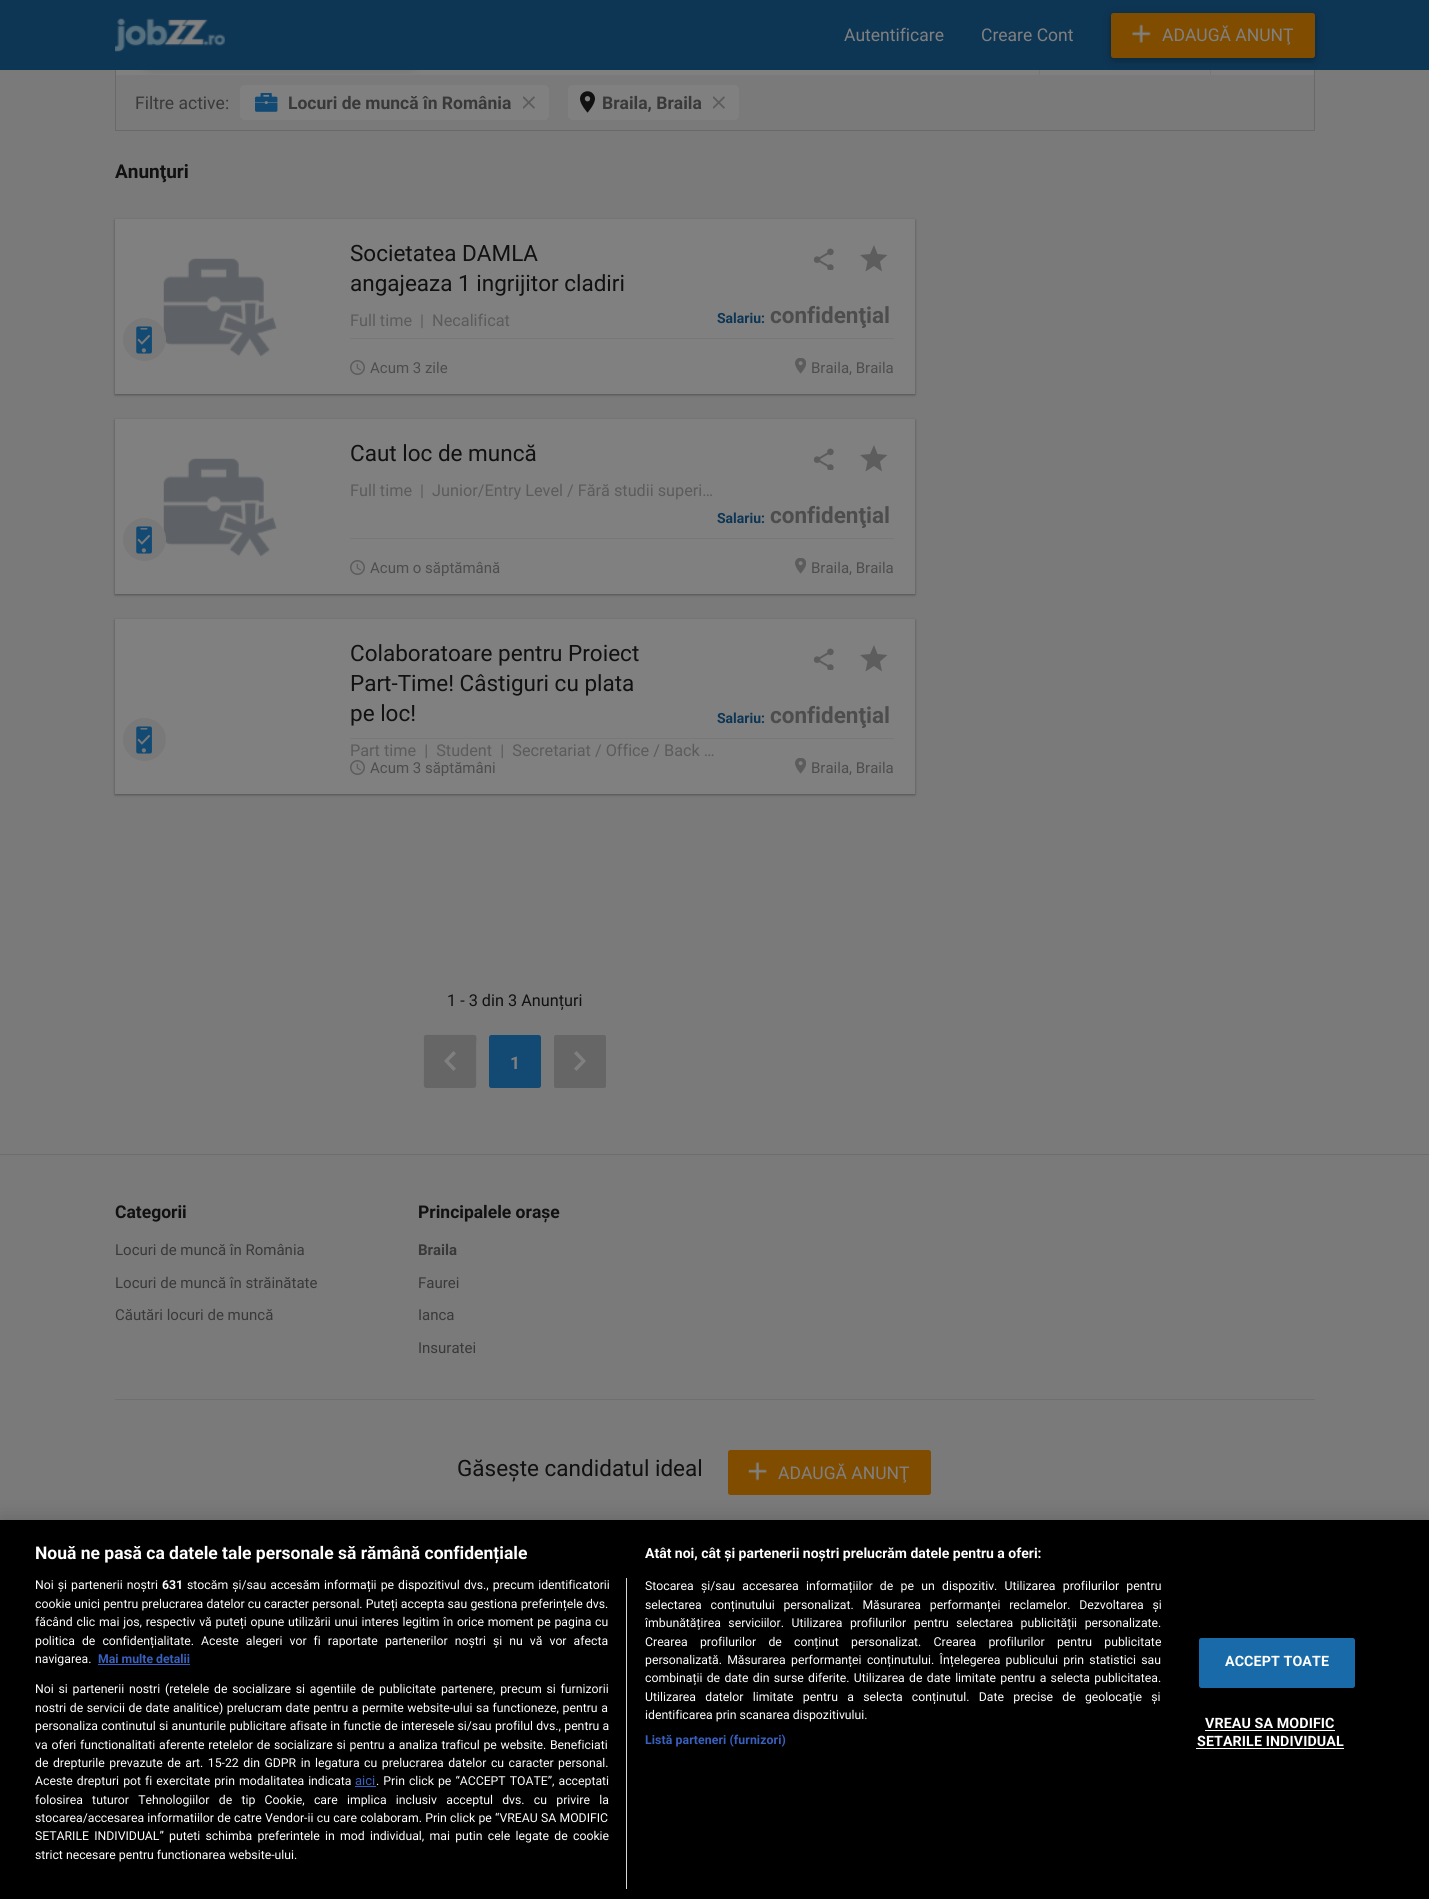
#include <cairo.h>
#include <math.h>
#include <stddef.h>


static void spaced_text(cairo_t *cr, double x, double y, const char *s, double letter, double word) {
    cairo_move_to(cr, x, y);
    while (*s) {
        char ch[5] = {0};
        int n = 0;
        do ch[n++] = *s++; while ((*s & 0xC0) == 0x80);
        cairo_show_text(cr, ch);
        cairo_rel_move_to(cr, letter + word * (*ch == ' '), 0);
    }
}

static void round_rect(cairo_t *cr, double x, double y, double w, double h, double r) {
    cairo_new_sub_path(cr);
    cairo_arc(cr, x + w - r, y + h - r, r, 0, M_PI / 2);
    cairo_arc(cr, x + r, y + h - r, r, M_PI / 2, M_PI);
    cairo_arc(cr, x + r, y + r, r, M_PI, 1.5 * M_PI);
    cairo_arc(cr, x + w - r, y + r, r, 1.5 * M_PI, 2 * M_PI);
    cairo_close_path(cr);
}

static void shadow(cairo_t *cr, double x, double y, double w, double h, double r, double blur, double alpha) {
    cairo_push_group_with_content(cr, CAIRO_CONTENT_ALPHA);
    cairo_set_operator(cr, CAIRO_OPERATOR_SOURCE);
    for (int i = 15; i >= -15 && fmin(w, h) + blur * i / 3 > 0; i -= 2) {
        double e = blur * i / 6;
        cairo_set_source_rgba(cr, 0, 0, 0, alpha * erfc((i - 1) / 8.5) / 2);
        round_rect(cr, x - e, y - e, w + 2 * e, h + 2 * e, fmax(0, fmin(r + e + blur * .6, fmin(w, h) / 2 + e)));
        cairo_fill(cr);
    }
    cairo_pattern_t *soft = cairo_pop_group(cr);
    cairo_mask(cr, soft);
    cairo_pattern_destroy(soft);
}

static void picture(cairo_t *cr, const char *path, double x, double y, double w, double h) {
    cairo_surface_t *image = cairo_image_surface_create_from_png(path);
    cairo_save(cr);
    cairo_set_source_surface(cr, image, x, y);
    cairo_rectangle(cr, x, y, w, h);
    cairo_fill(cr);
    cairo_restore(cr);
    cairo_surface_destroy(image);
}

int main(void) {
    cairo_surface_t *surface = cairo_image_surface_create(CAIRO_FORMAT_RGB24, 1429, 1899);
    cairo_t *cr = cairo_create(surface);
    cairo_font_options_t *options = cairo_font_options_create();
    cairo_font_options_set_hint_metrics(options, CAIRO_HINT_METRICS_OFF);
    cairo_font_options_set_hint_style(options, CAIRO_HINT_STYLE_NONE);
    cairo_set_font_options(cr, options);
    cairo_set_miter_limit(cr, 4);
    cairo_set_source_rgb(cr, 0.478, 0.478, 0.478);
    cairo_paint(cr);
    cairo_set_source_rgb(cr, 0.502, 0.502, 0.502);
    cairo_rectangle(cr, 116, 70, 1198, 5);
    cairo_fill(cr);
    cairo_rectangle(cr, 115.5, -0.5, 1199, 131);
    cairo_set_source_rgb(cr, 0.412, 0.412, 0.412);
    cairo_set_line_width(cr, 1);
    cairo_stroke(cr);
    cairo_set_source_rgb(cr, 0.4, 0.4, 0.4);
    shadow(cr, 138, 33, 285, 35, 17.5, 4, 1);
    cairo_set_source_rgb(cr, 0.051, 0.208, 0.329);
    cairo_rectangle(cr, 0, 0, 1429, 70);
    cairo_fill(cr);
    picture(cr, "img1.png", 115, 18, 110, 34);
    cairo_select_font_face(cr, "Roboto", CAIRO_FONT_SLANT_NORMAL, CAIRO_FONT_WEIGHT_NORMAL);
    cairo_set_font_size(cr, 17.5);
    cairo_set_source_rgb(cr, 0.502, 0.502, 0.502);
    cairo_move_to(cr, 844, 41);
    cairo_show_text(cr, "Autentificare");
    cairo_move_to(cr, 981, 41);
    cairo_show_text(cr, "Creare Cont");
    cairo_set_source_rgb(cr, 0.467, 0.467, 0.467);
    cairo_rectangle(cr, 1210, 70, 1, 5);
    cairo_fill(cr);
    cairo_set_source_rgb(cr, 0, 0, 0);
    shadow(cr, 1111, 15, 204, 45, 2.5, 6, 0.12);
    shadow(cr, 1111, 15, 204, 45, 2.5, 3, 0.16);
    cairo_set_source_rgb(cr, 0.502, 0.298, 0);
    round_rect(cr, 1111, 13, 204, 45, 2.5);
    cairo_fill(cr);
    picture(cr, "img2.png", 1132, 24, 19, 19);
    cairo_set_source_rgb(cr, 0.502, 0.502, 0.502);
    cairo_move_to(cr, 1162, 41);
    cairo_show_text(cr, "ADAUGĂ ANUNŢ");
    cairo_set_source_rgb(cr, 0.467, 0.467, 0.467);
    cairo_rectangle(cr, 1039, 70, 1, 5);
    cairo_fill(cr);
    cairo_set_source_rgb(cr, 0.224, 0.224, 0.224);
    cairo_move_to(cr, 135, 109);
    cairo_show_text(cr, "Filtre active:");
    cairo_set_source_rgb(cr, 0.502, 0.502, 0.502);
    round_rect(cr, 240, 85, 309, 35, 5);
    cairo_fill(cr);
    picture(cr, "img3.png", 255, 93, 23, 19);
    cairo_select_font_face(cr, "Roboto", CAIRO_FONT_SLANT_NORMAL, CAIRO_FONT_WEIGHT_BOLD);
    cairo_set_source_rgb(cr, 0.224, 0.224, 0.224);
    cairo_move_to(cr, 288, 109);
    cairo_show_text(cr, "Locuri de muncă în România");
    picture(cr, "img4.png", 523, 96, 12, 13);
    cairo_set_source_rgb(cr, 0.502, 0.502, 0.502);
    round_rect(cr, 568, 85, 171, 35, 5);
    cairo_fill(cr);
    picture(cr, "img5.png", 580, 91, 15, 22);
    cairo_set_source_rgb(cr, 0.224, 0.224, 0.224);
    cairo_move_to(cr, 602, 109);
    cairo_show_text(cr, "Braila, Braila");
    picture(cr, "img4.png", 713, 96, 12, 13);
    cairo_set_font_size(cr, 19);
    cairo_set_source_rgb(cr, 0.067, 0.067, 0.067);
    cairo_move_to(cr, 115, 178);
    cairo_show_text(cr, "Anunţuri");
    cairo_set_source_rgb(cr, 0, 0, 0);
    shadow(cr, 115, 220, 800, 175, 0, 1, 0.24);
    shadow(cr, 115, 220, 800, 175, 0, 2, 0.12);
    cairo_set_source_rgb(cr, 0.502, 0.502, 0.502);
    cairo_rectangle(cr, 115, 219, 800, 175);
    cairo_fill(cr);
    picture(cr, "img7.png", 163, 258, 114, 99);
    cairo_set_source_rgb(cr, 0.475, 0.475, 0.475);
    cairo_arc(cr, 144.5, 339.5, 21.5, 0, 2 * M_PI);
    cairo_fill(cr);
    picture(cr, "img6.png", 136, 326, 16, 28);
    cairo_select_font_face(cr, "Roboto", CAIRO_FONT_SLANT_NORMAL, CAIRO_FONT_WEIGHT_NORMAL);
    cairo_set_font_size(cr, 22.5);
    cairo_set_source_rgb(cr, 0.067, 0.067, 0.067);
    cairo_move_to(cr, 350, 261);
    cairo_show_text(cr, "Societatea DAMLA");
    cairo_move_to(cr, 350, 291);
    cairo_show_text(cr, "angajeaza 1 ingrijitor cladiri");
    picture(cr, "img8.png", 814, 248, 20, 22);
    cairo_set_source_rgb(cr, 0.365, 0.365, 0.365);
    cairo_new_path(cr);
    cairo_move_to(cr, 874, 266);
    cairo_line_to(cr, 882, 271.5);
    cairo_line_to(cr, 880, 261.5);
    cairo_line_to(cr, 887.5, 255);
    cairo_line_to(cr, 877.5, 254);
    cairo_line_to(cr, 874, 245);
    cairo_line_to(cr, 870, 254);
    cairo_line_to(cr, 860, 255);
    cairo_line_to(cr, 867.5, 261.5);
    cairo_line_to(cr, 865.5, 271.5);
    cairo_close_path(cr);
    cairo_fill(cr);
    cairo_set_font_size(cr, 16.25);
    cairo_set_source_rgb(cr, 0.357, 0.357, 0.357);
    cairo_move_to(cr, 350, 326);
    cairo_show_text(cr, "Full time  |  Necalificat");
    cairo_select_font_face(cr, "Roboto", CAIRO_FONT_SLANT_NORMAL, CAIRO_FONT_WEIGHT_BOLD);
    cairo_set_font_size(cr, 14);
    cairo_set_source_rgb(cr, 0.051, 0.208, 0.329);
    cairo_move_to(cr, 717, 323);
    cairo_show_text(cr, "Salariu:");
    cairo_set_font_size(cr, 22.5);
    cairo_set_source_rgb(cr, 0.302, 0.302, 0.302);
    cairo_move_to(cr, 770, 323);
    cairo_show_text(cr, "confidenţial");
    cairo_set_source_rgb(cr, 0.471, 0.471, 0.471);
    cairo_rectangle(cr, 350, 338, 544, 1);
    cairo_fill(cr);
    picture(cr, "img9.png", 350, 360, 15, 15);
    cairo_select_font_face(cr, "Roboto", CAIRO_FONT_SLANT_NORMAL, CAIRO_FONT_WEIGHT_NORMAL);
    cairo_set_font_size(cr, 15);
    cairo_set_source_rgb(cr, 0.302, 0.302, 0.302);
    cairo_move_to(cr, 370, 373);
    cairo_show_text(cr, "Acum 3 zile");
    picture(cr, "img10.png", 795, 358, 11, 16);
    cairo_move_to(cr, 811, 373);
    cairo_show_text(cr, "Braila, Braila");
    cairo_set_source_rgb(cr, 0, 0, 0);
    shadow(cr, 115, 420, 800, 175, 0, 1, 0.24);
    shadow(cr, 115, 420, 800, 175, 0, 2, 0.12);
    cairo_set_source_rgb(cr, 0.502, 0.502, 0.502);
    cairo_rectangle(cr, 115, 419, 800, 175);
    cairo_fill(cr);
    picture(cr, "img7.png", 163, 458, 114, 99);
    cairo_set_source_rgb(cr, 0.475, 0.475, 0.475);
    cairo_arc(cr, 144.5, 539.5, 21.5, 0, 2 * M_PI);
    cairo_fill(cr);
    picture(cr, "img6.png", 136, 526, 16, 28);
    cairo_set_font_size(cr, 22.5);
    cairo_set_source_rgb(cr, 0.067, 0.067, 0.067);
    cairo_move_to(cr, 350, 461);
    cairo_show_text(cr, "Caut loc de muncă");
    picture(cr, "img8.png", 814, 448, 20, 22);
    cairo_set_source_rgb(cr, 0.365, 0.365, 0.365);
    cairo_new_path(cr);
    cairo_move_to(cr, 874, 466);
    cairo_line_to(cr, 882, 471.5);
    cairo_line_to(cr, 880, 461.5);
    cairo_line_to(cr, 887.5, 455);
    cairo_line_to(cr, 877.5, 454);
    cairo_line_to(cr, 874, 445);
    cairo_line_to(cr, 870, 454);
    cairo_line_to(cr, 860, 455);
    cairo_line_to(cr, 867.5, 461.5);
    cairo_line_to(cr, 865.5, 471.5);
    cairo_close_path(cr);
    cairo_fill(cr);
    cairo_set_font_size(cr, 16.25);
    cairo_set_source_rgb(cr, 0.357, 0.357, 0.357);
    cairo_move_to(cr, 350, 496);
    cairo_show_text(cr, "Full time  |  Junior/Entry Level / Fără studii superi…");
    cairo_select_font_face(cr, "Roboto", CAIRO_FONT_SLANT_NORMAL, CAIRO_FONT_WEIGHT_BOLD);
    cairo_set_font_size(cr, 14);
    cairo_set_source_rgb(cr, 0.051, 0.208, 0.329);
    cairo_move_to(cr, 717, 523);
    cairo_show_text(cr, "Salariu:");
    cairo_set_font_size(cr, 22.5);
    cairo_set_source_rgb(cr, 0.302, 0.302, 0.302);
    cairo_move_to(cr, 770, 523);
    cairo_show_text(cr, "confidenţial");
    cairo_set_source_rgb(cr, 0.471, 0.471, 0.471);
    cairo_rectangle(cr, 350, 538, 544, 1);
    cairo_fill(cr);
    picture(cr, "img9.png", 350, 560, 15, 15);
    cairo_select_font_face(cr, "Roboto", CAIRO_FONT_SLANT_NORMAL, CAIRO_FONT_WEIGHT_NORMAL);
    cairo_set_font_size(cr, 15);
    cairo_set_source_rgb(cr, 0.302, 0.302, 0.302);
    cairo_move_to(cr, 370, 573);
    cairo_show_text(cr, "Acum o săptămână");
    picture(cr, "img10.png", 795, 558, 11, 16);
    cairo_move_to(cr, 811, 573);
    cairo_show_text(cr, "Braila, Braila");
    cairo_set_source_rgb(cr, 0, 0, 0);
    shadow(cr, 115, 620, 800, 175, 0, 1, 0.24);
    shadow(cr, 115, 620, 800, 175, 0, 2, 0.12);
    cairo_set_source_rgb(cr, 0.502, 0.502, 0.502);
    cairo_rectangle(cr, 115, 619, 800, 175);
    cairo_fill(cr);
    cairo_set_font_size(cr, 22.5);
    cairo_set_source_rgb(cr, 0.067, 0.067, 0.067);
    cairo_move_to(cr, 350, 661);
    cairo_show_text(cr, "Colaboratoare pentru Proiect");
    cairo_move_to(cr, 350, 691);
    cairo_show_text(cr, "Part-Time! Câstiguri cu plata");
    cairo_move_to(cr, 350, 721);
    cairo_show_text(cr, "pe loc!");
    picture(cr, "img8.png", 814, 648, 20, 22);
    cairo_set_source_rgb(cr, 0.365, 0.365, 0.365);
    cairo_new_path(cr);
    cairo_move_to(cr, 874, 666);
    cairo_line_to(cr, 882, 671.5);
    cairo_line_to(cr, 880, 661.5);
    cairo_line_to(cr, 887.5, 655);
    cairo_line_to(cr, 877.5, 654);
    cairo_line_to(cr, 874, 645);
    cairo_line_to(cr, 870, 654);
    cairo_line_to(cr, 860, 655);
    cairo_line_to(cr, 867.5, 661.5);
    cairo_line_to(cr, 865.5, 671.5);
    cairo_close_path(cr);
    cairo_fill(cr);
    cairo_set_source_rgb(cr, 0.475, 0.475, 0.475);
    cairo_arc(cr, 144.5, 739.5, 21.5, 0, 2 * M_PI);
    cairo_fill(cr);
    picture(cr, "img6.png", 136, 726, 16, 28);
    cairo_set_font_size(cr, 16.25);
    cairo_set_source_rgb(cr, 0.357, 0.357, 0.357);
    cairo_move_to(cr, 350, 756);
    cairo_show_text(cr, "Part time  |  Student  |  Secretariat / Office / Back …");
    cairo_select_font_face(cr, "Roboto", CAIRO_FONT_SLANT_NORMAL, CAIRO_FONT_WEIGHT_BOLD);
    cairo_set_font_size(cr, 14);
    cairo_set_source_rgb(cr, 0.051, 0.208, 0.329);
    cairo_move_to(cr, 717, 723);
    cairo_show_text(cr, "Salariu:");
    cairo_set_font_size(cr, 22.5);
    cairo_set_source_rgb(cr, 0.302, 0.302, 0.302);
    cairo_move_to(cr, 770, 723);
    cairo_show_text(cr, "confidenţial");
    cairo_set_source_rgb(cr, 0.471, 0.471, 0.471);
    cairo_rectangle(cr, 350, 738, 544, 1);
    cairo_fill(cr);
    picture(cr, "img9.png", 350, 760, 15, 15);
    cairo_select_font_face(cr, "Roboto", CAIRO_FONT_SLANT_NORMAL, CAIRO_FONT_WEIGHT_NORMAL);
    cairo_set_font_size(cr, 15);
    cairo_set_source_rgb(cr, 0.302, 0.302, 0.302);
    cairo_move_to(cr, 370, 773);
    cairo_show_text(cr, "Acum 3 săptămâni");
    picture(cr, "img10.png", 795, 758, 11, 16);
    cairo_move_to(cr, 811, 773);
    cairo_show_text(cr, "Braila, Braila");
    cairo_set_font_size(cr, 16.25);
    cairo_set_source_rgb(cr, 0.067, 0.067, 0.067);
    cairo_move_to(cr, 447, 1006);
    cairo_show_text(cr, "1 - 3 din 3 Anunțuri");
    cairo_set_source_rgb(cr, 0.4, 0.4, 0.4);
    cairo_new_path(cr);
    cairo_move_to(cr, 474, 1035);
    cairo_line_to(cr, 426, 1035);
    cairo_curve_to(cr, 425, 1035, 424, 1036, 424, 1038);
    cairo_line_to(cr, 424, 1085);
    cairo_curve_to(cr, 424, 1086, 425, 1088, 426, 1088);
    cairo_line_to(cr, 474, 1088);
    cairo_curve_to(cr, 475, 1088, 476, 1086, 476, 1085);
    cairo_line_to(cr, 476, 1038);
    cairo_curve_to(cr, 476, 1036, 475, 1035, 474, 1035);
    cairo_close_path(cr);
    cairo_fill(cr);
    cairo_set_source_rgb(cr, 0.502, 0.502, 0.502);
    cairo_new_path(cr);
    cairo_move_to(cr, 456, 1053.5);
    cairo_line_to(cr, 453.5, 1051);
    cairo_line_to(cr, 444, 1061);
    cairo_line_to(cr, 453.5, 1071);
    cairo_line_to(cr, 456, 1068.5);
    cairo_line_to(cr, 448.5, 1061);
    cairo_close_path(cr);
    cairo_fill(cr);
    cairo_new_path(cr);
    cairo_move_to(cr, 474, 1035.5);
    cairo_line_to(cr, 426, 1035.5);
    cairo_line_to(cr, 424.5, 1036.5);
    cairo_line_to(cr, 424.5, 1077);
    cairo_curve_to(cr, 424.5, 1088.5, 422.5, 1087, 434, 1087);
    cairo_line_to(cr, 466, 1087);
    cairo_curve_to(cr, 477.5, 1087, 475.5, 1088.5, 475.5, 1077);
    cairo_line_to(cr, 475.5, 1045.5);
    cairo_curve_to(cr, 475.5, 1041.5, 477, 1035.5, 474, 1035.5);
    cairo_close_path(cr);
    cairo_set_source_rgb(cr, 0.4, 0.4, 0.4);
    cairo_set_line_width(cr, 1.2);
    cairo_stroke(cr);
    cairo_set_source_rgb(cr, 0.075, 0.29, 0.455);
    round_rect(cr, 489.5, 1035.5, 51, 52, 2);
    cairo_fill_preserve(cr);
    cairo_set_line_width(cr, 1);
    cairo_stroke(cr);
    cairo_select_font_face(cr, "Roboto", CAIRO_FONT_SLANT_NORMAL, CAIRO_FONT_WEIGHT_BOLD);
    cairo_set_font_size(cr, 17.5);
    cairo_set_source_rgb(cr, 0.502, 0.502, 0.502);
    cairo_move_to(cr, 510, 1069);
    cairo_show_text(cr, "1");
    cairo_set_source_rgb(cr, 0.4, 0.4, 0.4);
    round_rect(cr, 554, 1035, 52, 53, 2.5);
    cairo_fill(cr);
    cairo_set_source_rgb(cr, 0.502, 0.502, 0.502);
    cairo_new_path(cr);
    cairo_move_to(cr, 574, 1053.5);
    cairo_line_to(cr, 576.5, 1051);
    cairo_line_to(cr, 586, 1061);
    cairo_line_to(cr, 576.5, 1071);
    cairo_line_to(cr, 574, 1068.5);
    cairo_line_to(cr, 581.5, 1061);
    cairo_close_path(cr);
    cairo_fill(cr);
    round_rect(cr, 554.5, 1035.5, 51, 52, 2);
    cairo_set_source_rgb(cr, 0.4, 0.4, 0.4);
    cairo_stroke(cr);
    cairo_set_source_rgb(cr, 0.427, 0.427, 0.427);
    cairo_rectangle(cr, 0, 1154, 1429, 1);
    cairo_fill(cr);
    cairo_set_source_rgb(cr, 0.067, 0.067, 0.067);
    cairo_move_to(cr, 115, 1218);
    cairo_show_text(cr, "Categorii");
    cairo_select_font_face(cr, "Roboto", CAIRO_FONT_SLANT_NORMAL, CAIRO_FONT_WEIGHT_NORMAL);
    cairo_set_font_size(cr, 15);
    cairo_set_source_rgb(cr, 0.224, 0.224, 0.224);
    cairo_move_to(cr, 115, 1255);
    cairo_show_text(cr, "Locuri de muncă în România");
    cairo_move_to(cr, 115, 1288);
    cairo_show_text(cr, "Locuri de muncă în străinătate");
    cairo_move_to(cr, 115, 1320);
    cairo_show_text(cr, "Căutări locuri de muncă");
    cairo_select_font_face(cr, "Roboto", CAIRO_FONT_SLANT_NORMAL, CAIRO_FONT_WEIGHT_BOLD);
    cairo_set_font_size(cr, 17.5);
    cairo_set_source_rgb(cr, 0.067, 0.067, 0.067);
    cairo_move_to(cr, 418, 1218);
    cairo_show_text(cr, "Principalele orașe");
    cairo_set_font_size(cr, 15);
    cairo_set_source_rgb(cr, 0.224, 0.224, 0.224);
    cairo_move_to(cr, 418, 1255);
    cairo_show_text(cr, "Braila");
    cairo_select_font_face(cr, "Roboto", CAIRO_FONT_SLANT_NORMAL, CAIRO_FONT_WEIGHT_NORMAL);
    cairo_move_to(cr, 418, 1288);
    cairo_show_text(cr, "Faurei");
    cairo_move_to(cr, 418, 1320);
    cairo_show_text(cr, "Ianca");
    cairo_move_to(cr, 418, 1353);
    cairo_show_text(cr, "Insuratei");
    cairo_set_source_rgb(cr, 0.435, 0.435, 0.435);
    cairo_rectangle(cr, 115, 1399, 1200, 1);
    cairo_fill(cr);
    cairo_set_font_size(cr, 22.5);
    cairo_set_source_rgb(cr, 0.067, 0.067, 0.067);
    cairo_move_to(cr, 457, 1476);
    cairo_show_text(cr, "Găsește candidatul ideal");
    cairo_set_source_rgb(cr, 0.502, 0.298, 0);
    round_rect(cr, 728, 1450, 203, 45, 2.5);
    cairo_fill(cr);
    picture(cr, "img11.png", 748, 1462, 19, 19);
    cairo_set_font_size(cr, 17.5);
    cairo_set_source_rgb(cr, 0.502, 0.502, 0.502);
    cairo_move_to(cr, 778, 1479);
    cairo_show_text(cr, "ADAUGĂ ANUNŢ");
    cairo_set_source_rgb(cr, 0, 0, 0);
    shadow(cr, 0, 1520, 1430, 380, 0, 11, 0.2);
    cairo_set_source_rgb(cr, 0, 0, 0);
    cairo_rectangle(cr, 0, 1520, 1429, 379);
    cairo_fill(cr);
    cairo_select_font_face(cr, "Roboto", CAIRO_FONT_SLANT_NORMAL, CAIRO_FONT_WEIGHT_BOLD);
    cairo_set_source_rgb(cr, 1, 1, 1);
    cairo_move_to(cr, 35, 1559);
    cairo_show_text(cr, "Nouă ne pasă ca datele tale personale să rămână confidențiale");
    cairo_set_font_size(cr, 14);
    cairo_move_to(cr, 645, 1558);
    cairo_show_text(cr, "Atât noi, cât și partenerii noștri prelucrăm datele pentru a oferi:");
    cairo_select_font_face(cr, "Roboto", CAIRO_FONT_SLANT_NORMAL, CAIRO_FONT_WEIGHT_NORMAL);
    cairo_set_font_size(cr, 12.25);
    spaced_text(cr, 645, 1590, "Stocarea și/sau accesarea informațiilor de pe un dispozitiv. Utilizarea profilurilor pentru", 0, 4.25);
    spaced_text(cr, 645, 1609, "selectarea conținutului personalizat. Măsurarea performanței reclamelor. Dezvoltarea și", 0, 5.75);
    spaced_text(cr, 645, 1627, "îmbunătățirea serviciilor. Utilizarea profilurilor pentru selectarea publicității personalizate.", 0, 4.5);
    spaced_text(cr, 645, 1646, "Crearea profilurilor de conținut personalizat. Crearea profilurilor pentru publicitate", 0, 9.25);
    spaced_text(cr, 645, 1664, "personalizată. Măsurarea performanței conținutului. Înțelegerea publicului prin statistici sau", 0, 2.25);
    spaced_text(cr, 645, 1682, "combinații de date din surse diferite. Utilizarea de date limitate pentru a selecta publicitatea.", 0, 1.25);
    spaced_text(cr, 645, 1701, "Utilizarea datelor limitate pentru a selecta conținutul. Date precise de geolocație și", 0, 6.25);
    cairo_move_to(cr, 645, 1719);
    cairo_show_text(cr, "identificarea prin scanarea dispozitivului.");
    cairo_select_font_face(cr, "Roboto", CAIRO_FONT_SLANT_NORMAL, CAIRO_FONT_WEIGHT_BOLD);
    cairo_set_source_rgb(cr, 0.22, 0.376, 0.745);
    spaced_text(cr, 645, 1744, "Listă parteneri (furnizori)", 0.1, 0);
    cairo_set_source_rgb(cr, 0.847, 0.847, 0.847);
    cairo_rectangle(cr, 626, 1578, 1, 311);
    cairo_fill(cr);
    cairo_select_font_face(cr, "Roboto", CAIRO_FONT_SLANT_NORMAL, CAIRO_FONT_WEIGHT_NORMAL);
    cairo_set_source_rgb(cr, 1, 1, 1);
    spaced_text(cr, 35, 1589, "Noi și partenerii noștri", 0, 1);
    cairo_select_font_face(cr, "Roboto", CAIRO_FONT_SLANT_NORMAL, CAIRO_FONT_WEIGHT_BOLD);
    cairo_move_to(cr, 162, 1589);
    cairo_show_text(cr, "631");
    cairo_select_font_face(cr, "Roboto", CAIRO_FONT_SLANT_NORMAL, CAIRO_FONT_WEIGHT_NORMAL);
    spaced_text(cr, 187, 1589, "stocăm și/sau accesăm informații pe dispozitivul dvs., precum identificatorii", 0, 1);
    spaced_text(cr, 35, 1608, "cookie unici pentru prelucrarea datelor cu caracter personal. Puteți accepta sau gestiona preferințele dvs.", 0, 0.1);
    spaced_text(cr, 35, 1626, "făcând clic mai jos, respectiv vă puteți opune utilizării unui interes legitim în orice moment pe pagina cu", 0, 0.75);
    spaced_text(cr, 35, 1645, "politica de confidențialitate. Aceste alegeri vor fi raportate partenerilor noștri și nu vă vor afecta", 0, 4);
    cairo_move_to(cr, 35, 1663);
    cairo_show_text(cr, "navigarea.");
    cairo_select_font_face(cr, "Roboto", CAIRO_FONT_SLANT_NORMAL, CAIRO_FONT_WEIGHT_BOLD);
    cairo_set_source_rgb(cr, 0.22, 0.376, 0.745);
    cairo_move_to(cr, 98, 1663);
    cairo_show_text(cr, "Mai multe detalii");
    cairo_rectangle(cr, 98, 1664, 92, 1);
    cairo_fill(cr);
    cairo_select_font_face(cr, "Roboto", CAIRO_FONT_SLANT_NORMAL, CAIRO_FONT_WEIGHT_NORMAL);
    cairo_set_source_rgb(cr, 1, 1, 1);
    spaced_text(cr, 35, 1693, "Noi si partenerii nostri (retelele de socializare si agentiile de publicitate partenere, precum si furnizorii", 0, 1.75);
    spaced_text(cr, 35, 1712, "nostri de servicii de date analitice) prelucram date pentru a permite website-ului sa functioneze, pentru a", 0, 0.5);
    spaced_text(cr, 35, 1730, "personaliza continutul si anunturile publicitare afisate in functie de interesele si/sau profilul dvs., pentru a", 0, 0.25);
    spaced_text(cr, 35, 1749, "va oferi functionalitati aferente retelelor de socializare si pentru a analiza traficul pe website. Beneficiati", 0, 0.75);
    spaced_text(cr, 35, 1767, "de drepturile prevazute de art. 15-22 din GDPR in legatura cu prelucrarea datelor cu caracter personal.", 0, 1.5);
    spaced_text(cr, 35, 1785, "Aceste drepturi pot fi exercitate prin modalitatea indicata", 0, 1);
    cairo_set_font_size(cr, 13);
    cairo_set_source_rgb(cr, 0.22, 0.376, 0.745);
    cairo_move_to(cr, 355, 1785);
    cairo_show_text(cr, "aici");
    cairo_rectangle(cr, 355, 1786, 21, 1);
    cairo_fill(cr);
    cairo_set_font_size(cr, 12.25);
    cairo_set_source_rgb(cr, 1, 1, 1);
    spaced_text(cr, 376, 1785, ". Prin click pe “ACCEPT TOATE”, acceptati", 0, 1);
    spaced_text(cr, 35, 1804, "folosirea tuturor Tehnologiilor de tip Cookie, care implica inclusiv acceptul dvs. cu privire la", 0, 6.25);
    spaced_text(cr, 35, 1822, "stocarea/accesarea informatiilor de catre Vendor-ii cu care colaboram. Prin click pe “VREAU SA MODIFIC", 0, 0.25);
    spaced_text(cr, 35, 1840, "SETARILE INDIVIDUAL” puteti schimba preferintele in mod individual, mai putin cele legate de cookie", 0, 2.25);
    cairo_move_to(cr, 35, 1859);
    cairo_show_text(cr, "strict necesare pentru functionarea website-ului.");
    cairo_set_source_rgb(cr, 0.098, 0.416, 0.659);
    round_rect(cr, 1199.5, 1638.5, 155, 49, 2);
    cairo_fill_preserve(cr);
    cairo_stroke(cr);
    cairo_select_font_face(cr, "Roboto", CAIRO_FONT_SLANT_NORMAL, CAIRO_FONT_WEIGHT_BOLD);
    cairo_set_font_size(cr, 14.25);
    cairo_set_source_rgb(cr, 1, 1, 1);
    spaced_text(cr, 1225, 1666, "ACCEPT TOATE", 0.1, 0);
    spaced_text(cr, 1205, 1728, "VREAU SA MODIFIC", 0.1, 0);
    cairo_rectangle(cr, 1205, 1730, 130, 1);
    cairo_fill(cr);
    spaced_text(cr, 1197, 1746, "SETARILE INDIVIDUAL", 0.1, 0);
    cairo_rectangle(cr, 1196, 1748, 148, 1);
    cairo_fill(cr);
    cairo_surface_write_to_png(surface, "page.png");
    cairo_font_options_destroy(options);
    cairo_destroy(cr);
    cairo_surface_destroy(surface);
    return 0;
}
